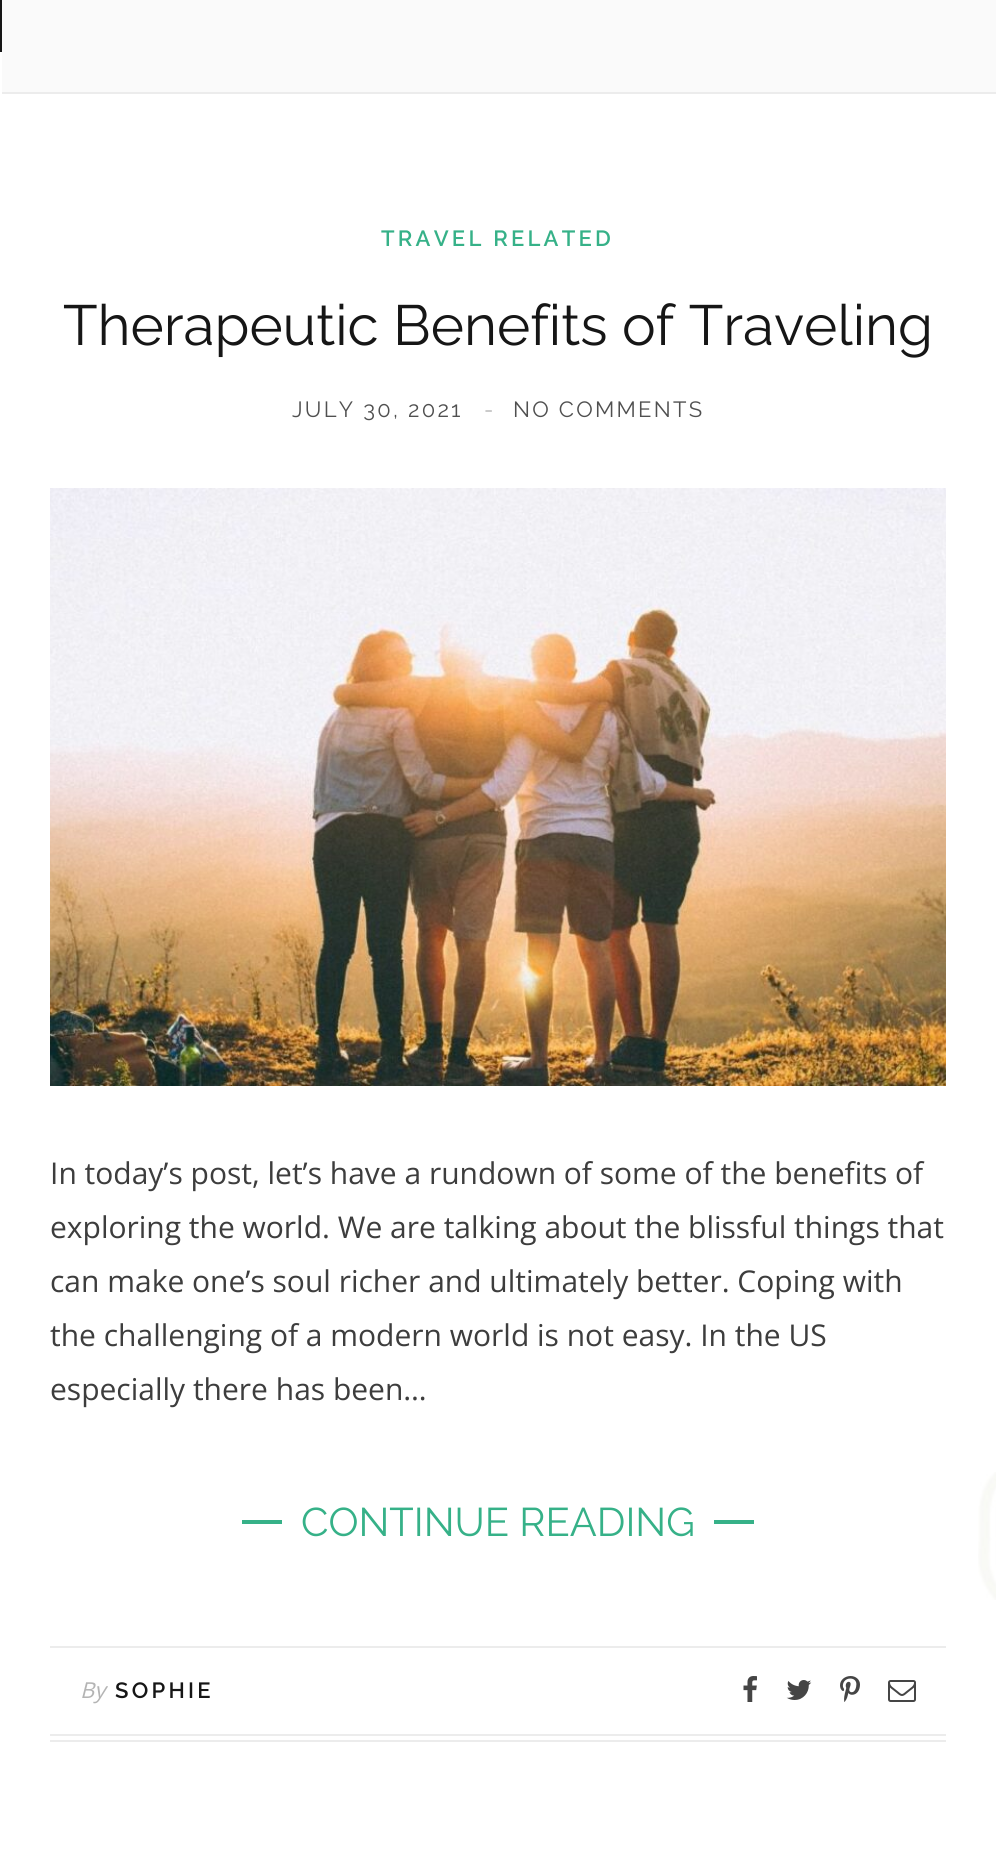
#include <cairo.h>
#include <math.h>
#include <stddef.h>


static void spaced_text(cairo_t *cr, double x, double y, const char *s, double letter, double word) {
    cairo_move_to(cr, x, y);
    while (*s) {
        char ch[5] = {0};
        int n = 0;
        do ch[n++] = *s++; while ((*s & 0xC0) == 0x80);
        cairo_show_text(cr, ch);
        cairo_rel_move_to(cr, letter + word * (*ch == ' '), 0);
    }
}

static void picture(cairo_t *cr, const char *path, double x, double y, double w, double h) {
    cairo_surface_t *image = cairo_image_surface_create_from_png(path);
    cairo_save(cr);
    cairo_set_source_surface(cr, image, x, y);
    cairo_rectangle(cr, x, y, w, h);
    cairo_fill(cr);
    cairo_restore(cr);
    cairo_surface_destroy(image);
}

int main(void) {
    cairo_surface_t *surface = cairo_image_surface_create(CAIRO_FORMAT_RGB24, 996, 1862);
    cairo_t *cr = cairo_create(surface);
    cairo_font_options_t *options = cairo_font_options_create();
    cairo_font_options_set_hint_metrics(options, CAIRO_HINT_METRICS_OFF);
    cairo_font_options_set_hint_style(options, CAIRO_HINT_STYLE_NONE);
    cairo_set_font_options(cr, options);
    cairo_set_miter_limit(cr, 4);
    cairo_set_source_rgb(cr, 1, 1, 1);
    cairo_paint(cr);
    cairo_set_source_rgb(cr, 0.922, 0.922, 0.922);
    cairo_rectangle(cr, 0, 92, 996, 2);
    cairo_fill(cr);
    cairo_set_source_rgb(cr, 1, 1, 1);
    cairo_rectangle(cr, 0, 92, 2, 2);
    cairo_fill(cr);
    cairo_set_source_rgb(cr, 0.086, 0.086, 0.086);
    cairo_rectangle(cr, 0, 0, 2, 52);
    cairo_fill(cr);
    picture(cr, "img1.png", 978, 1472, 18, 128);
    cairo_set_source_rgb(cr, 0.98, 0.98, 0.98);
    cairo_rectangle(cr, 2, 0, 994, 92);
    cairo_fill(cr);
    cairo_select_font_face(cr, "Raleway SemiBold", CAIRO_FONT_SLANT_NORMAL, CAIRO_FONT_WEIGHT_NORMAL);
    cairo_set_font_size(cr, 22);
    cairo_set_source_rgb(cr, 0.212, 0.694, 0.533);
    spaced_text(cr, 381, 246, "TRAVEL RELATED", 3.25, 0);
    cairo_select_font_face(cr, "Raleway", CAIRO_FONT_SLANT_NORMAL, CAIRO_FONT_WEIGHT_NORMAL);
    cairo_set_font_size(cr, 56.6);
    cairo_set_source_rgb(cr, 0.086, 0.086, 0.086);
    cairo_move_to(cr, 63, 345);
    cairo_show_text(cr, "Therapeutic Benefits of Traveling");
    cairo_set_font_size(cr, 22);
    cairo_set_source_rgb(cr, 0.314, 0.314, 0.314);
    spaced_text(cr, 292, 417, "JULY 30, 2021", 2.25, 0);
    cairo_set_source_rgb(cr, 0.706, 0.706, 0.706);
    cairo_move_to(cr, 484, 417);
    cairo_show_text(cr, "-");
    cairo_set_source_rgb(cr, 0.314, 0.314, 0.314);
    spaced_text(cr, 513, 417, "NO COMMENTS", 2.25, 0);
    picture(cr, "img2.png", 50, 488, 896, 598);
    cairo_select_font_face(cr, "Open Sans", CAIRO_FONT_SLANT_NORMAL, CAIRO_FONT_WEIGHT_NORMAL);
    cairo_set_font_size(cr, 30);
    cairo_set_source_rgb(cr, 0.239, 0.239, 0.239);
    cairo_move_to(cr, 50, 1184);
    cairo_show_text(cr, "In today’s post, let’s have a rundown of some of the benefits of");
    cairo_move_to(cr, 50, 1238);
    cairo_show_text(cr, "exploring the world. We are talking about the blissful things that");
    cairo_move_to(cr, 50, 1292);
    cairo_show_text(cr, "can make one’s soul richer and ultimately better. Coping with");
    cairo_move_to(cr, 50, 1346);
    cairo_show_text(cr, "the challenging of a modern world is not easy. In the US");
    cairo_move_to(cr, 50, 1400);
    cairo_show_text(cr, "especially there has been…");
    cairo_set_source_rgb(cr, 0.212, 0.694, 0.533);
    cairo_rectangle(cr, 242, 1520, 512, 4);
    cairo_fill(cr);
    cairo_set_source_rgb(cr, 1, 1, 1);
    cairo_rectangle(cr, 282, 1520, 432, 4);
    cairo_fill(cr);
    cairo_select_font_face(cr, "Raleway", CAIRO_FONT_SLANT_NORMAL, CAIRO_FONT_WEIGHT_NORMAL);
    cairo_set_font_size(cr, 40);
    cairo_set_source_rgb(cr, 0.212, 0.694, 0.533);
    cairo_move_to(cr, 301, 1536);
    cairo_show_text(cr, "CONTINUE READING");
    cairo_set_source_rgb(cr, 0.922, 0.922, 0.922);
    cairo_rectangle(cr, 50, 1740, 896, 2);
    cairo_fill(cr);
    cairo_rectangle(cr, 50, 1646, 896, 2);
    cairo_fill(cr);
    cairo_rectangle(cr, 50, 1734, 896, 2);
    cairo_fill(cr);
    cairo_select_font_face(cr, "Open Sans", CAIRO_FONT_SLANT_ITALIC, CAIRO_FONT_WEIGHT_NORMAL);
    cairo_set_font_size(cr, 22);
    cairo_set_source_rgb(cr, 0.706, 0.706, 0.706);
    cairo_move_to(cr, 80, 1698);
    cairo_show_text(cr, "By");
    cairo_select_font_face(cr, "Raleway SemiBold", CAIRO_FONT_SLANT_NORMAL, CAIRO_FONT_WEIGHT_NORMAL);
    cairo_set_source_rgb(cr, 0.086, 0.086, 0.086);
    spaced_text(cr, 115, 1698, "SOPHIE", 3.25, 0);
    picture(cr, "img3.png", 743, 1676, 14, 26);
    picture(cr, "img4.png", 786, 1680, 26, 20);
    picture(cr, "img5.png", 840, 1676, 20, 26);
    picture(cr, "img6.png", 888, 1680, 28, 22);
    cairo_surface_write_to_png(surface, "page.png");
    cairo_font_options_destroy(options);
    cairo_destroy(cr);
    cairo_surface_destroy(surface);
    return 0;
}
